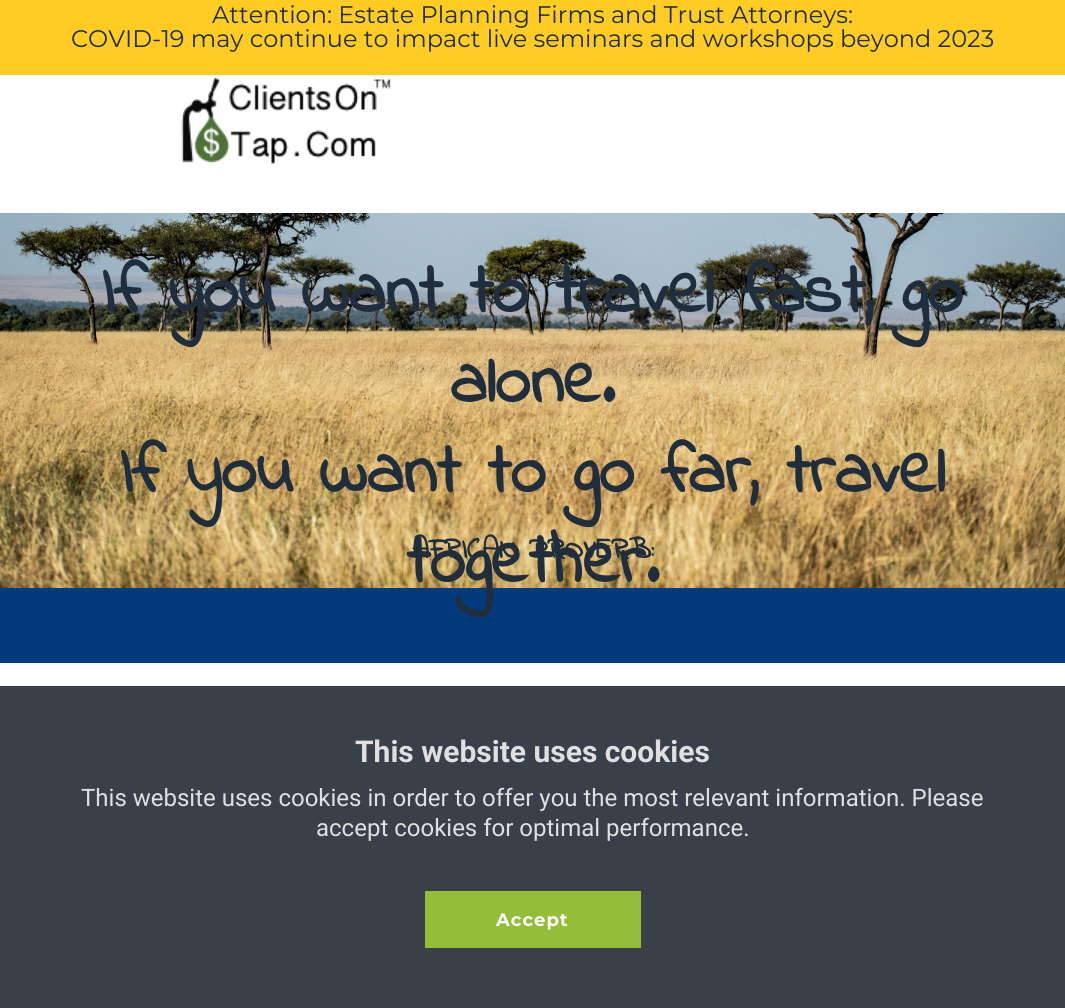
#include <cairo.h>
#include <math.h>
#include <stddef.h>


static void spaced_text(cairo_t *cr, double x, double y, const char *s, double letter, double word) {
    cairo_move_to(cr, x, y);
    while (*s) {
        char ch[5] = {0};
        int n = 0;
        do ch[n++] = *s++; while ((*s & 0xC0) == 0x80);
        cairo_show_text(cr, ch);
        cairo_rel_move_to(cr, letter + word * (*ch == ' '), 0);
    }
}

static void picture(cairo_t *cr, const char *path, double x, double y, double w, double h) {
    cairo_surface_t *image = cairo_image_surface_create_from_png(path);
    cairo_save(cr);
    cairo_set_source_surface(cr, image, x, y);
    cairo_rectangle(cr, x, y, w, h);
    cairo_fill(cr);
    cairo_restore(cr);
    cairo_surface_destroy(image);
}

int main(void) {
    cairo_surface_t *surface = cairo_image_surface_create(CAIRO_FORMAT_RGB24, 1065, 1008);
    cairo_t *cr = cairo_create(surface);
    cairo_font_options_t *options = cairo_font_options_create();
    cairo_font_options_set_hint_metrics(options, CAIRO_HINT_METRICS_OFF);
    cairo_font_options_set_hint_style(options, CAIRO_HINT_STYLE_NONE);
    cairo_set_font_options(cr, options);
    cairo_set_miter_limit(cr, 4);
    cairo_set_source_rgb(cr, 1, 1, 1);
    cairo_paint(cr);
    cairo_set_source_rgb(cr, 1, 0.8, 0.141);
    cairo_rectangle(cr, 0, 0, 1065, 75);
    cairo_fill(cr);
    cairo_select_font_face(cr, "Montserrat", CAIRO_FONT_SLANT_NORMAL, CAIRO_FONT_WEIGHT_NORMAL);
    cairo_set_font_size(cr, 24);
    cairo_set_source_rgb(cr, 0.125, 0.176, 0.235);
    cairo_move_to(cr, 212, 23);
    cairo_show_text(cr, "Attention: Estate Planning Firms and Trust Attorneys:");
    cairo_move_to(cr, 71, 47);
    cairo_show_text(cr, "COVID-19 may continue to impact live seminars and workshops beyond 2023");
    picture(cr, "img1.png", 181, 77, 210, 87);
    picture(cr, "img2.png", 0, 213, 1065, 375);
    cairo_select_font_face(cr, "Indie Flower", CAIRO_FONT_SLANT_NORMAL, CAIRO_FONT_WEIGHT_BOLD);
    cairo_set_font_size(cr, 72);
    cairo_move_to(cr, 102, 312);
    cairo_show_text(cr, "If you want to travel fast, go");
    cairo_move_to(cr, 450, 402);
    cairo_show_text(cr, "alone.");
    cairo_move_to(cr, 120, 492);
    cairo_show_text(cr, "If you want to go far, travel");
    cairo_set_source_rgb(cr, 0.012, 0.227, 0.486);
    cairo_rectangle(cr, 0, 588, 1065, 75);
    cairo_fill(cr);
    cairo_set_source_rgb(cr, 0.125, 0.176, 0.235);
    cairo_move_to(cr, 406, 582);
    cairo_show_text(cr, "together.");
    cairo_set_font_size(cr, 30);
    cairo_move_to(cr, 412, 558);
    cairo_show_text(cr, "AFRICAN PROVERB:");
    cairo_set_source_rgb(cr, 0.227, 0.251, 0.286);
    cairo_rectangle(cr, 0, 686, 1065, 322);
    cairo_fill(cr);
    cairo_select_font_face(cr, "Roboto", CAIRO_FONT_SLANT_NORMAL, CAIRO_FONT_WEIGHT_BOLD);
    cairo_set_source_rgb(cr, 0.878, 0.878, 0.878);
    cairo_move_to(cr, 355, 762);
    cairo_show_text(cr, "This website uses cookies");
    cairo_select_font_face(cr, "Roboto", CAIRO_FONT_SLANT_NORMAL, CAIRO_FONT_WEIGHT_NORMAL);
    cairo_set_font_size(cr, 24);
    cairo_move_to(cr, 81, 806);
    cairo_show_text(cr, "This website uses cookies in order to offer you the most relevant information. Please");
    cairo_move_to(cr, 316, 836);
    cairo_show_text(cr, "accept cookies for optimal performance.");
    cairo_set_source_rgb(cr, 0.584, 0.745, 0.22);
    cairo_rectangle(cr, 425, 891, 216, 57);
    cairo_fill(cr);
    cairo_select_font_face(cr, "Montserrat", CAIRO_FONT_SLANT_NORMAL, CAIRO_FONT_WEIGHT_BOLD);
    cairo_set_font_size(cr, 18);
    cairo_set_source_rgb(cr, 1, 1, 1);
    spaced_text(cr, 496, 926, "Accept", 1, 0);
    cairo_surface_write_to_png(surface, "page.png");
    cairo_font_options_destroy(options);
    cairo_destroy(cr);
    cairo_surface_destroy(surface);
    return 0;
}
